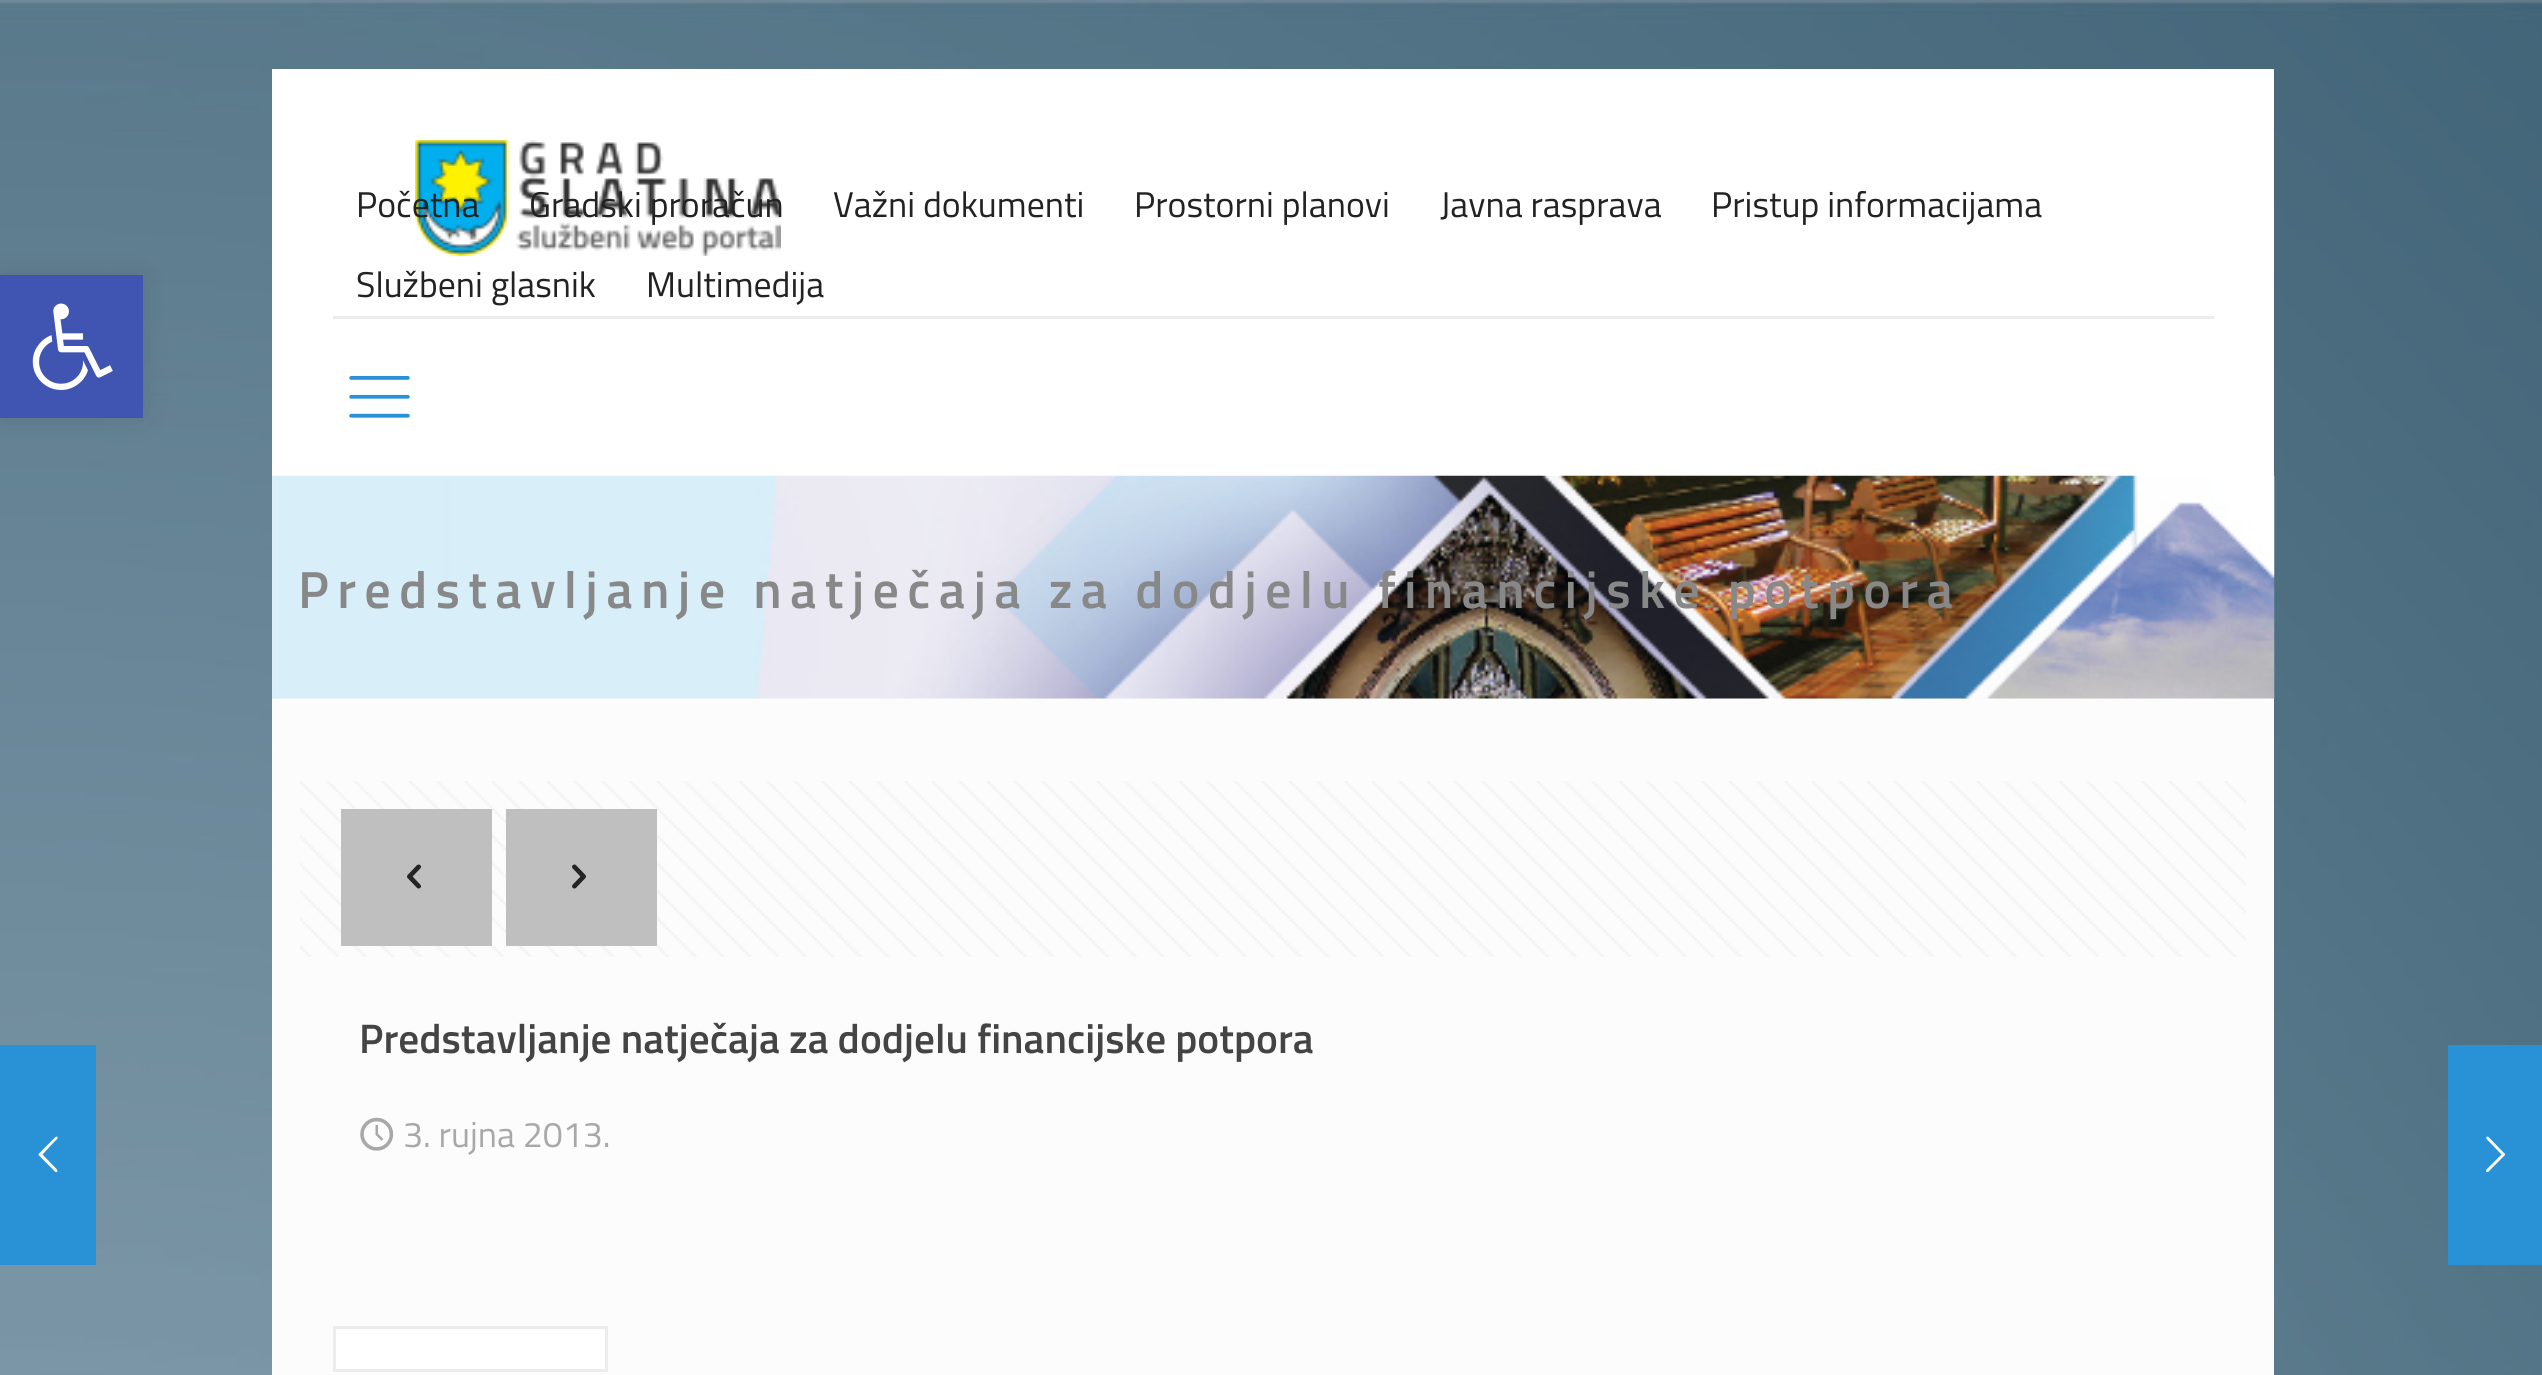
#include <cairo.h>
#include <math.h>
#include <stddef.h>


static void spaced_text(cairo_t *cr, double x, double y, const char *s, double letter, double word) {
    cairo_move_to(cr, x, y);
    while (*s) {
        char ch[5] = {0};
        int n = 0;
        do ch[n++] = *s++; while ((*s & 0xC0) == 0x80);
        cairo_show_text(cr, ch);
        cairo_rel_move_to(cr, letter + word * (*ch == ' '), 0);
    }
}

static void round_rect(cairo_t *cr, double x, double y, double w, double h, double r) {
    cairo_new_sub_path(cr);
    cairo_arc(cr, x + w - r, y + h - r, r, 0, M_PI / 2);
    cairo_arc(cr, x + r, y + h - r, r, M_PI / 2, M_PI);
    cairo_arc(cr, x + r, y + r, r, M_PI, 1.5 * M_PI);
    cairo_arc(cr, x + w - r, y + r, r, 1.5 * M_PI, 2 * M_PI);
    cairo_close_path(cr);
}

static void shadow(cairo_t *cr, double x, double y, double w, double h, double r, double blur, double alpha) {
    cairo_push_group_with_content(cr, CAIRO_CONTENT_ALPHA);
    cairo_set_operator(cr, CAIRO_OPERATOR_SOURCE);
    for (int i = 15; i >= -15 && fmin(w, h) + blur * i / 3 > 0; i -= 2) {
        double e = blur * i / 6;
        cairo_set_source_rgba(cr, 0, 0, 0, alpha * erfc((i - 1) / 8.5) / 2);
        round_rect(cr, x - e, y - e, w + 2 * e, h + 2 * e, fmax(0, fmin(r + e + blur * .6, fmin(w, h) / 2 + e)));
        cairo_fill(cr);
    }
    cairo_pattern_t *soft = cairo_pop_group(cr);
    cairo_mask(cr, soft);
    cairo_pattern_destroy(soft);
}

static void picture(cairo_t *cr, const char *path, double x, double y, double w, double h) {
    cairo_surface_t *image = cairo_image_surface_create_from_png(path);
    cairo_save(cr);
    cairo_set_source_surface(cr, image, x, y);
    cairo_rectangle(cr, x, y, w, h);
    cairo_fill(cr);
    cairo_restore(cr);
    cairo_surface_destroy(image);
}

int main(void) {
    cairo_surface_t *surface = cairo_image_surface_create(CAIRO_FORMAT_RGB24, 2542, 1375);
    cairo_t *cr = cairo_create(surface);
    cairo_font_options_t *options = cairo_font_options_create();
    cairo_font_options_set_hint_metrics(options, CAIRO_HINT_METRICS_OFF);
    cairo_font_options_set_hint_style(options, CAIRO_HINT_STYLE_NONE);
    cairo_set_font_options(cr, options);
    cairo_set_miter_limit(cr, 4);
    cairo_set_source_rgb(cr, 1, 1, 1);
    cairo_paint(cr);
    picture(cr, "img1.png", 0, 0, 2542, 1375);
    cairo_set_source_rgb(cr, 0, 0, 0);
    shadow(cr, 0, 275, 143, 143, 0, 14, 0.1);
    cairo_set_source_rgb(cr, 0.251, 0.329, 0.698);
    cairo_rectangle(cr, 0, 275, 143, 143);
    cairo_fill(cr);
    picture(cr, "img2.png", 32, 303, 81, 87);
    cairo_set_source_rgb(cr, 0.988, 0.988, 0.988);
    cairo_rectangle(cr, 272, 699, 2002, 676);
    cairo_fill(cr);
    cairo_set_source_rgb(cr, 1, 1, 1);
    cairo_rectangle(cr, 272, 69, 2002, 407);
    cairo_fill(cr);
    cairo_set_source_rgb(cr, 0.922, 0.922, 0.922);
    cairo_rectangle(cr, 333, 316, 1881, 3);
    cairo_fill(cr);
    picture(cr, "img3.png", 415, 140, 366, 116);
    cairo_select_font_face(cr, "Titillium Web", CAIRO_FONT_SLANT_NORMAL, CAIRO_FONT_WEIGHT_NORMAL);
    cairo_set_font_size(cr, 35.75);
    cairo_set_source_rgb(cr, 0.133, 0.133, 0.133);
    cairo_move_to(cr, 356, 217);
    cairo_show_text(cr, "Početna");
    cairo_move_to(cr, 529, 217);
    cairo_show_text(cr, "Gradski proračun");
    cairo_move_to(cr, 833, 217);
    cairo_show_text(cr, "Važni dokumenti");
    cairo_move_to(cr, 1134, 217);
    cairo_show_text(cr, "Prostorni planovi");
    cairo_move_to(cr, 1440, 217);
    cairo_show_text(cr, "Javna rasprava");
    cairo_move_to(cr, 1711, 217);
    cairo_show_text(cr, "Pristup informacijama");
    cairo_move_to(cr, 356, 297);
    cairo_show_text(cr, "Službeni glasnik");
    cairo_move_to(cr, 646, 297);
    cairo_show_text(cr, "Multimedija");
    picture(cr, "img4.png", 349, 376, 61, 42);
    cairo_set_source_rgb(cr, 0.969, 0.969, 0.969);
    cairo_rectangle(cr, 272, 476, 2002, 223);
    cairo_fill(cr);
    picture(cr, "img5.png", 272, 475, 2003, 224);
    cairo_select_font_face(cr, "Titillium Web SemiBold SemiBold", CAIRO_FONT_SLANT_NORMAL, CAIRO_FONT_WEIGHT_NORMAL);
    cairo_set_font_size(cr, 52.25);
    cairo_set_source_rgb(cr, 0.533, 0.533, 0.533);
    spaced_text(cr, 298, 608, "Predstavljanje natječaja za dodjelu financijske potpora", 8.25, 0);
    picture(cr, "img6.png", 300, 781, 1946, 176);
    cairo_set_source_rgb(cr, 0.749, 0.749, 0.749);
    cairo_rectangle(cr, 341, 809, 151, 137);
    cairo_fill(cr);
    picture(cr, "img7.png", 407, 864, 14, 25);
    cairo_rectangle(cr, 506, 809, 151, 137);
    cairo_fill(cr);
    picture(cr, "img8.png", 572, 864, 14, 25);
    cairo_set_font_size(cr, 41.25);
    cairo_set_source_rgb(cr, 0.267, 0.267, 0.267);
    cairo_move_to(cr, 359, 1053);
    cairo_show_text(cr, "Predstavljanje natječaja za dodjelu financijske potpora");
    picture(cr, "img9.png", 360, 1117, 34, 34);
    cairo_select_font_face(cr, "Titillium Web", CAIRO_FONT_SLANT_NORMAL, CAIRO_FONT_WEIGHT_NORMAL);
    cairo_set_font_size(cr, 35.75);
    cairo_set_source_rgb(cr, 0.659, 0.659, 0.659);
    cairo_move_to(cr, 403, 1147);
    cairo_show_text(cr, "3. rujna 2013.");
    cairo_set_source_rgb(cr, 1, 1, 1);
    cairo_rectangle(cr, 334.5, 1327.5, 272, 43);
    cairo_fill_preserve(cr);
    cairo_set_source_rgb(cr, 0.922, 0.922, 0.922);
    cairo_set_line_width(cr, 3);
    cairo_stroke(cr);
    cairo_set_source_rgb(cr, 0.161, 0.569, 0.839);
    cairo_rectangle(cr, 0, 1045, 96, 220);
    cairo_fill(cr);
    cairo_set_source_rgb(cr, 1, 1, 1);
    cairo_new_path(cr);
    cairo_move_to(cr, 57, 1169.5);
    cairo_line_to(cr, 57.5, 1171);
    cairo_curve_to(cr, 56.5, 1174.5, 52.5, 1169, 52.5, 1169);
    cairo_line_to(cr, 38.5, 1155);
    cairo_line_to(cr, 38.5, 1154);
    cairo_line_to(cr, 55.5, 1137);
    cairo_line_to(cr, 56.5, 1136.5);
    cairo_curve_to(cr, 60, 1137.5, 55, 1141, 54.5, 1141.5);
    cairo_line_to(cr, 42.5, 1154.5);
    cairo_close_path(cr);
    cairo_fill(cr);
    cairo_set_source_rgb(cr, 0.161, 0.569, 0.839);
    cairo_rectangle(cr, 2448, 1045, 94, 220);
    cairo_fill(cr);
    cairo_set_source_rgb(cr, 1, 1, 1);
    cairo_new_path(cr);
    cairo_move_to(cr, 2486.5, 1169.5);
    cairo_line_to(cr, 2501.5, 1154.5);
    cairo_line_to(cr, 2489, 1141.5);
    cairo_curve_to(cr, 2488.5, 1141, 2484, 1137.5, 2487.5, 1136.5);
    cairo_line_to(cr, 2488.5, 1137);
    cairo_line_to(cr, 2505, 1154);
    cairo_line_to(cr, 2505, 1155);
    cairo_line_to(cr, 2491, 1169);
    cairo_curve_to(cr, 2491, 1169, 2487, 1174.5, 2486, 1171);
    cairo_close_path(cr);
    cairo_fill(cr);
    cairo_surface_write_to_png(surface, "page.png");
    cairo_font_options_destroy(options);
    cairo_destroy(cr);
    cairo_surface_destroy(surface);
    return 0;
}
